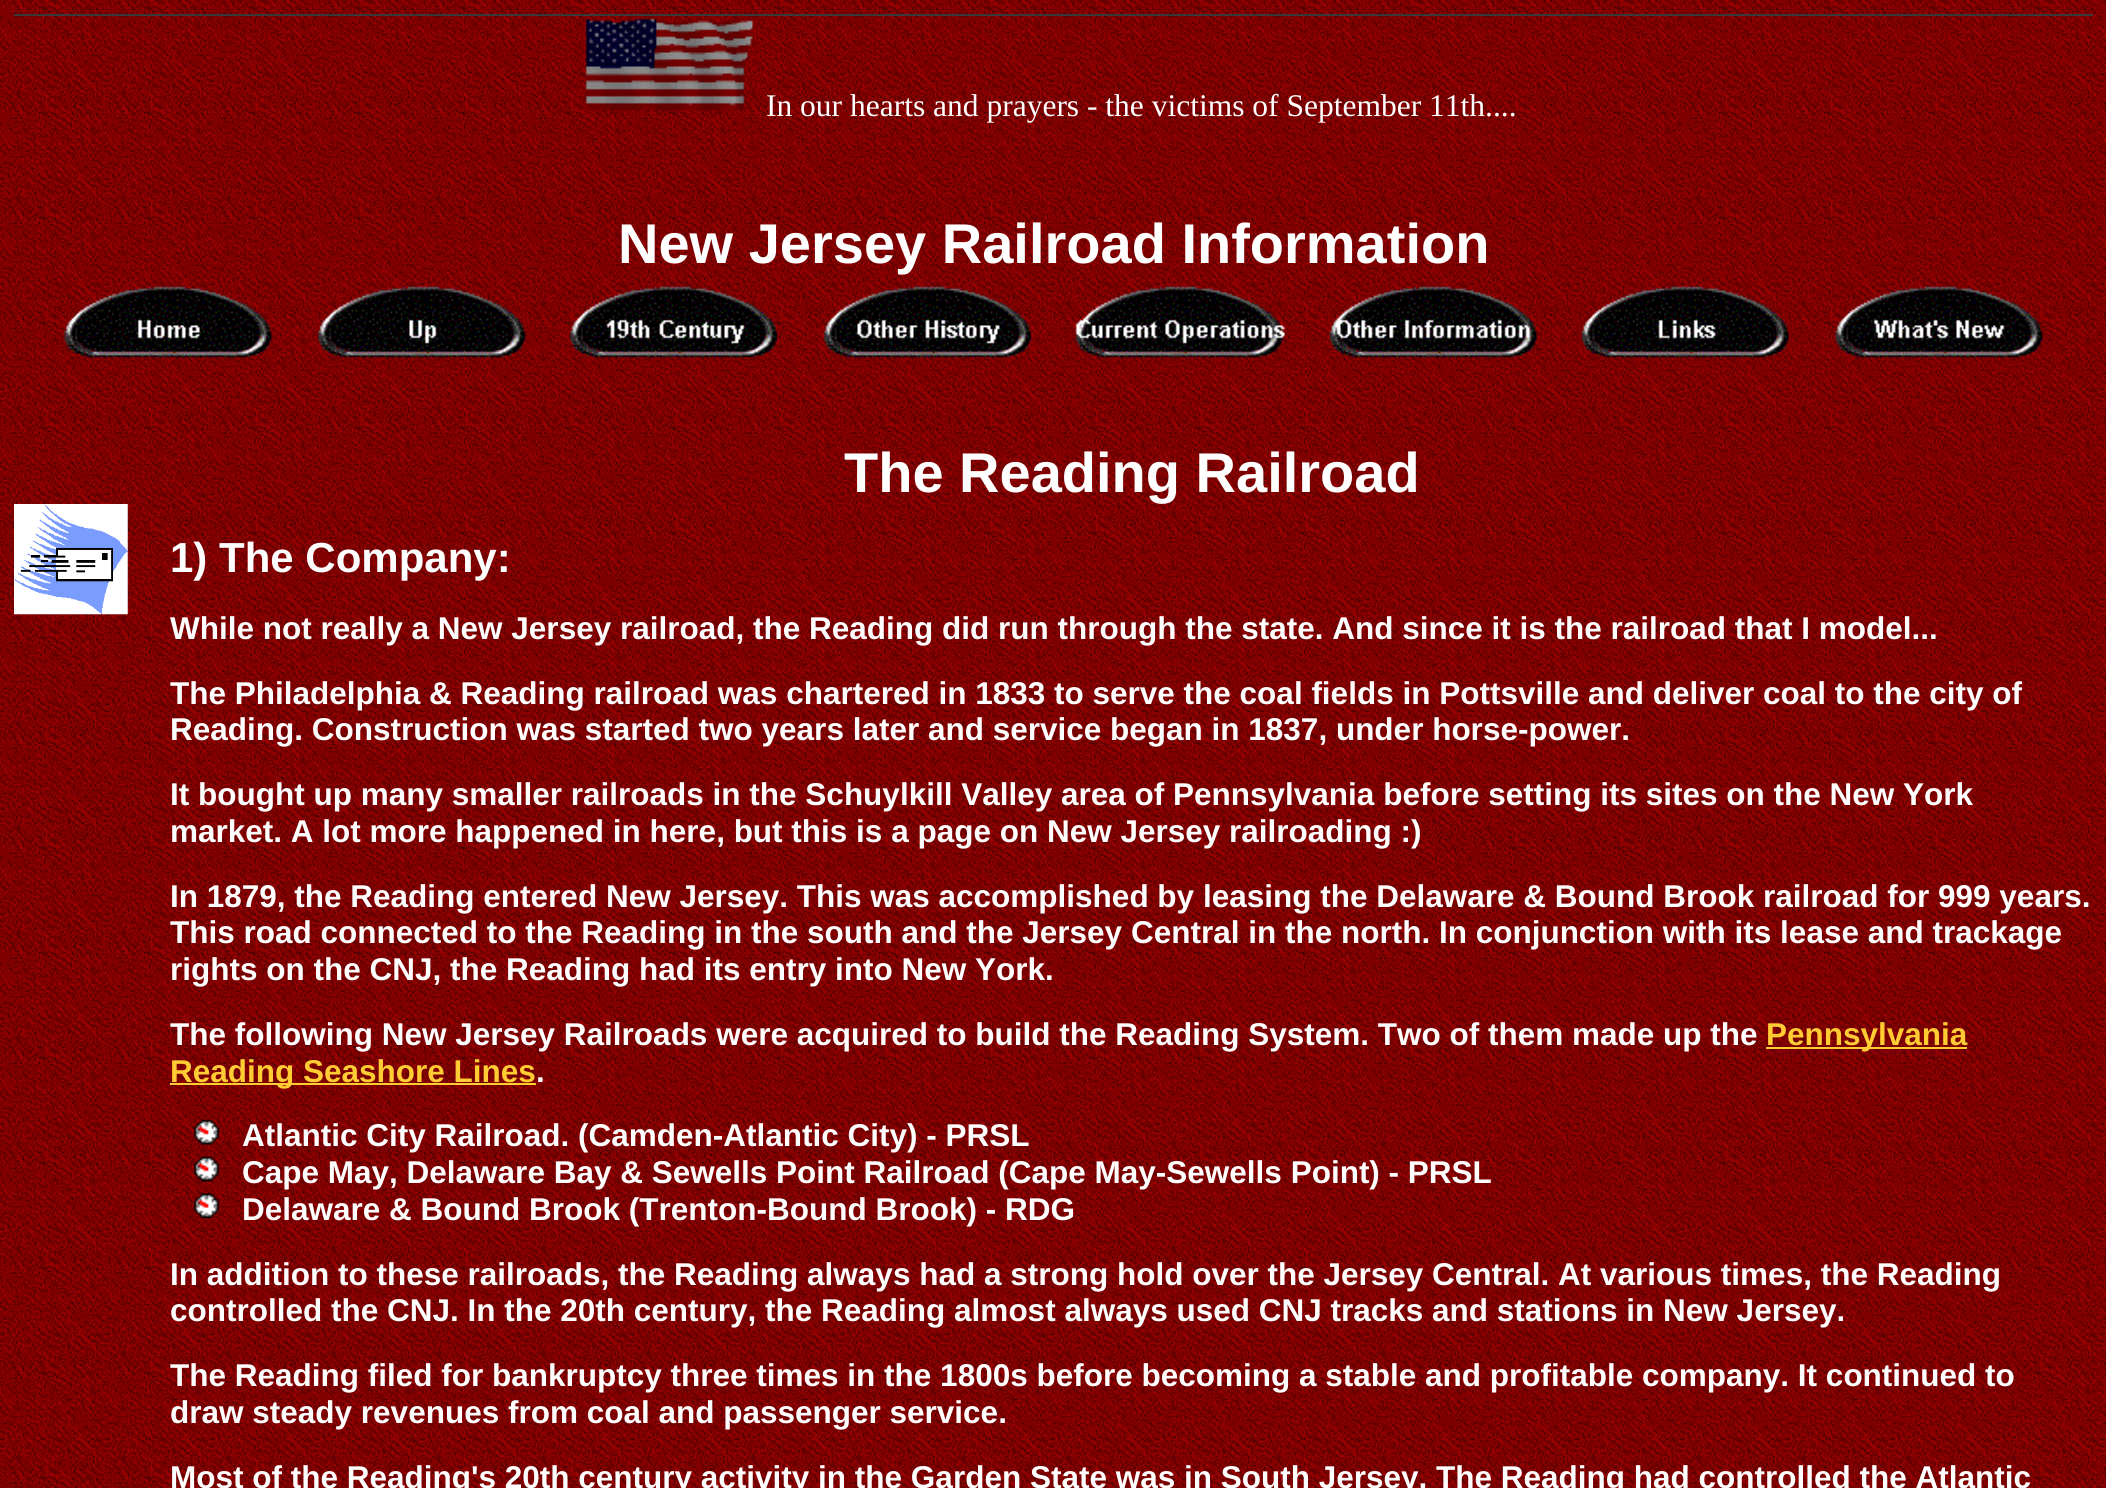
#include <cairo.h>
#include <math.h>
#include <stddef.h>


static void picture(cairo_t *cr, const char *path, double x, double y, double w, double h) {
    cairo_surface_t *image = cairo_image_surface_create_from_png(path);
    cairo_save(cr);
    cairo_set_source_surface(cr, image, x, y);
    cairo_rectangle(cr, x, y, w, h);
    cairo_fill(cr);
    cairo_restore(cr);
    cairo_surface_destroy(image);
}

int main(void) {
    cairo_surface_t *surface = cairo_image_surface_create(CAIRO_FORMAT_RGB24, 2106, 1488);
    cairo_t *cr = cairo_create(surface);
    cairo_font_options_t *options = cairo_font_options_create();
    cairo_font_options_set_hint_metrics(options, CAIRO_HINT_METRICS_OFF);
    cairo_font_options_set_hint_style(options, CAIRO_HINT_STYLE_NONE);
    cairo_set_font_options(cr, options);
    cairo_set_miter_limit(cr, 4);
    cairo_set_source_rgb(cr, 1, 1, 1);
    cairo_paint(cr);
    picture(cr, "img1.png", 0, 0, 2106, 1488);
    cairo_set_source_rgb(cr, 0.224, 0.224, 0.224);
    cairo_rectangle(cr, 14, 14, 2079, 2);
    cairo_fill(cr);
    picture(cr, "img2.png", 585, 18, 168, 95);
    cairo_select_font_face(cr, "Liberation Serif", CAIRO_FONT_SLANT_NORMAL, CAIRO_FONT_WEIGHT_NORMAL);
    cairo_set_font_size(cr, 31.5);
    cairo_set_source_rgb(cr, 1, 1, 1);
    cairo_move_to(cr, 766, 116);
    cairo_show_text(cr, "In our hearts and prayers - the victims of September 11th....");
    cairo_select_font_face(cr, "Liberation Sans", CAIRO_FONT_SLANT_NORMAL, CAIRO_FONT_WEIGHT_BOLD);
    cairo_set_font_size(cr, 56);
    cairo_move_to(cr, 618, 263);
    cairo_show_text(cr, "New Jersey Railroad Information");
    picture(cr, "img3.png", 64, 286, 208, 72);
    picture(cr, "img4.png", 318, 286, 208, 72);
    picture(cr, "img5.png", 570, 286, 208, 72);
    picture(cr, "img6.png", 823, 286, 209, 72);
    picture(cr, "img7.png", 1075, 286, 210, 72);
    picture(cr, "img8.png", 1329, 286, 208, 72);
    picture(cr, "img9.png", 1581, 286, 208, 72);
    picture(cr, "img10.png", 1835, 286, 208, 72);
    picture(cr, "img11.png", 14, 504, 114, 111);
    cairo_move_to(cr, 844, 492);
    cairo_show_text(cr, "The Reading Railroad");
    cairo_set_font_size(cr, 42);
    cairo_move_to(cr, 170, 572);
    cairo_show_text(cr, "1) The Company:");
    cairo_set_font_size(cr, 31.5);
    cairo_move_to(cr, 170, 639);
    cairo_show_text(cr, "While not really a New Jersey railroad, the Reading did run through the state. And since it is the railroad that I model...");
    cairo_move_to(cr, 170, 704);
    cairo_show_text(cr, "The Philadelphia & Reading railroad was chartered in 1833 to serve the coal fields in Pottsville and deliver coal to the city of");
    cairo_move_to(cr, 170, 740);
    cairo_show_text(cr, "Reading. Construction was started two years later and service began in 1837, under horse-power.");
    cairo_move_to(cr, 170, 805);
    cairo_show_text(cr, "It bought up many smaller railroads in the Schuylkill Valley area of Pennsylvania before setting its sites on the New York");
    cairo_move_to(cr, 170, 842);
    cairo_show_text(cr, "market. A lot more happened in here, but this is a page on New Jersey railroading :)");
    cairo_move_to(cr, 170, 907);
    cairo_show_text(cr, "In 1879, the Reading entered New Jersey. This was accomplished by leasing the Delaware & Bound Brook railroad for 999 years.");
    cairo_move_to(cr, 170, 943);
    cairo_show_text(cr, "This road connected to the Reading in the south and the Jersey Central in the north. In conjunction with its lease and trackage");
    cairo_move_to(cr, 170, 980);
    cairo_show_text(cr, "rights on the CNJ, the Reading had its entry into New York.");
    cairo_move_to(cr, 170, 1045);
    cairo_show_text(cr, "The following New Jersey Railroads were acquired to build the Reading System. Two of them made up the");
    cairo_set_source_rgb(cr, 1, 0.8, 0.2);
    cairo_rectangle(cr, 1766, 1047, 201, 2);
    cairo_fill(cr);
    cairo_move_to(cr, 1766, 1045);
    cairo_show_text(cr, "Pennsylvania");
    cairo_rectangle(cr, 170, 1083, 366, 2);
    cairo_fill(cr);
    cairo_move_to(cr, 170, 1082);
    cairo_show_text(cr, "Reading Seashore Lines");
    cairo_set_source_rgb(cr, 1, 1, 1);
    cairo_move_to(cr, 536, 1082);
    cairo_show_text(cr, ".");
    picture(cr, "img12.png", 193, 1119, 26, 26);
    cairo_move_to(cr, 242, 1146);
    cairo_show_text(cr, "Atlantic City Railroad. (Camden-Atlantic City) - PRSL");
    picture(cr, "img13.png", 193, 1156, 26, 26);
    cairo_move_to(cr, 242, 1183);
    cairo_show_text(cr, "Cape May, Delaware Bay & Sewells Point Railroad (Cape May-Sewells Point) - PRSL");
    picture(cr, "img14.png", 193, 1193, 26, 25);
    cairo_move_to(cr, 242, 1220);
    cairo_show_text(cr, "Delaware & Bound Brook (Trenton-Bound Brook) - RDG");
    cairo_move_to(cr, 170, 1285);
    cairo_show_text(cr, "In addition to these railroads, the Reading always had a strong hold over the Jersey Central. At various times, the Reading");
    cairo_move_to(cr, 170, 1321);
    cairo_show_text(cr, "controlled the CNJ. In the 20th century, the Reading almost always used CNJ tracks and stations in New Jersey.");
    cairo_move_to(cr, 170, 1386);
    cairo_show_text(cr, "The Reading filed for bankruptcy three times in the 1800s before becoming a stable and profitable company. It continued to");
    cairo_move_to(cr, 170, 1423);
    cairo_show_text(cr, "draw steady revenues from coal and passenger service.");
    cairo_move_to(cr, 170, 1488);
    cairo_show_text(cr, "Most of the Reading's 20th century activity in the Garden State was in South Jersey. The Reading had controlled the Atlantic");
    cairo_surface_write_to_png(surface, "page.png");
    cairo_font_options_destroy(options);
    cairo_destroy(cr);
    cairo_surface_destroy(surface);
    return 0;
}
